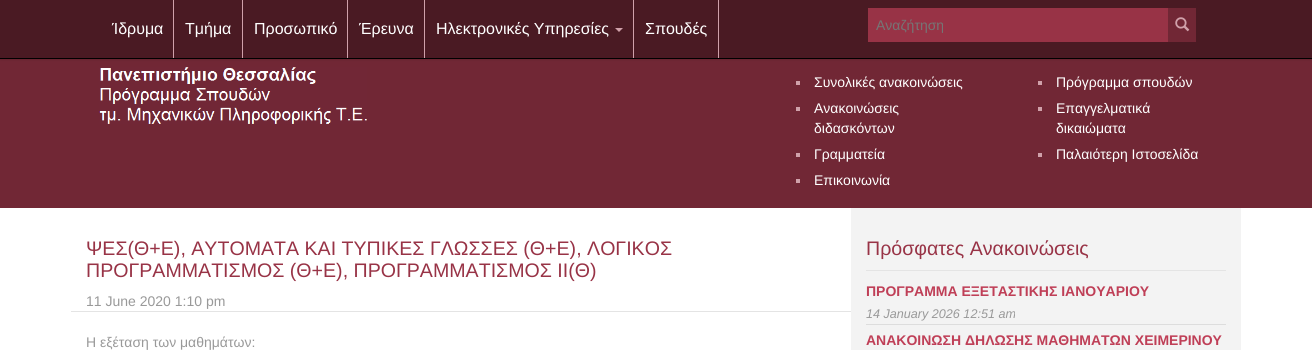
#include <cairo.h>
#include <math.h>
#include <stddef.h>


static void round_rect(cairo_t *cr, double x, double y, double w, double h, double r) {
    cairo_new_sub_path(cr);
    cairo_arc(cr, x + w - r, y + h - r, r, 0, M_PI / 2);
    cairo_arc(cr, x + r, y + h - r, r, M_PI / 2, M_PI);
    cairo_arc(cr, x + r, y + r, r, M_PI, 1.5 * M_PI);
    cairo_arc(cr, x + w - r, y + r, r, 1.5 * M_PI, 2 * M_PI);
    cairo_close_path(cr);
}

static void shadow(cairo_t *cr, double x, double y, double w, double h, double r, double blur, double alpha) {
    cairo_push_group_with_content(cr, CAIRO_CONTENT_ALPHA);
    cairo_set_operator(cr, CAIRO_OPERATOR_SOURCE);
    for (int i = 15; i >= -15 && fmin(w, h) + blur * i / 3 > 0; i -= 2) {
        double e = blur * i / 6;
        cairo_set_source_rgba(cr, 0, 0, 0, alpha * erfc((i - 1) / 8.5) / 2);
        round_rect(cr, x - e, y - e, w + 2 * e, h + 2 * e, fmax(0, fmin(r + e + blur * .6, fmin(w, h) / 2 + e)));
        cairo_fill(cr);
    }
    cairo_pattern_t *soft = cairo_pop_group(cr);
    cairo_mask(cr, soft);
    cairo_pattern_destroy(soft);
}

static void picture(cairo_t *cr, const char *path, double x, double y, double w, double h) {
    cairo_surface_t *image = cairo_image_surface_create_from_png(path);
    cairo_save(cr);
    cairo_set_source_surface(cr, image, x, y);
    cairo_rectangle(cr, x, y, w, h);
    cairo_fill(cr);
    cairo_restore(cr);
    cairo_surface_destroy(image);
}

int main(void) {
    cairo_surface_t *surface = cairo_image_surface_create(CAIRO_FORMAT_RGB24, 1312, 350);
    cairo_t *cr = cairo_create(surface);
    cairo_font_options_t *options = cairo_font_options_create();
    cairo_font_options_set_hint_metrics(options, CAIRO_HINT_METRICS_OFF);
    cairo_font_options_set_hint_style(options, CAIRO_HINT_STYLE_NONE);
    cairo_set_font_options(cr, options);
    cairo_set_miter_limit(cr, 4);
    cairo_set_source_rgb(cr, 1, 1, 1);
    cairo_paint(cr);
    cairo_set_source_rgb(cr, 0, 0, 0);
    cairo_rectangle(cr, 0, 58, 1312, 1);
    cairo_fill(cr);
    cairo_set_source_rgb(cr, 0.443, 0.153, 0.208);
    cairo_rectangle(cr, 0, 59, 1312, 149);
    cairo_fill(cr);
    cairo_set_source_rgb(cr, 0, 0, 0);
    shadow(cr, 0, 1, 1312, 58, 0, 1.5, 0.2);
    cairo_set_source_rgb(cr, 0.29, 0.102, 0.137);
    cairo_rectangle(cr, 0, 0, 1312, 58);
    cairo_fill(cr);
    cairo_set_source_rgb(cr, 0.816, 0.631, 0.667);
    cairo_rectangle(cr, 173, 0, 1, 58);
    cairo_fill(cr);
    cairo_select_font_face(cr, "Liberation Sans", CAIRO_FONT_SLANT_NORMAL, CAIRO_FONT_WEIGHT_NORMAL);
    cairo_set_font_size(cr, 16);
    cairo_set_source_rgb(cr, 1, 1, 1);
    cairo_move_to(cr, 112, 34);
    cairo_show_text(cr, "Ίδρυμα");
    cairo_set_source_rgb(cr, 0.816, 0.631, 0.667);
    cairo_rectangle(cr, 242, 0, 1, 58);
    cairo_fill(cr);
    cairo_set_source_rgb(cr, 1, 1, 1);
    cairo_move_to(cr, 185, 34);
    cairo_show_text(cr, "Τμήμα");
    cairo_set_source_rgb(cr, 0.816, 0.631, 0.667);
    cairo_rectangle(cr, 347, 0, 1, 58);
    cairo_fill(cr);
    cairo_set_source_rgb(cr, 1, 1, 1);
    cairo_move_to(cr, 254, 34);
    cairo_show_text(cr, "Προσωπικό");
    cairo_set_source_rgb(cr, 0.816, 0.631, 0.667);
    cairo_rectangle(cr, 424, 0, 1, 58);
    cairo_fill(cr);
    cairo_set_source_rgb(cr, 1, 1, 1);
    cairo_move_to(cr, 359, 34);
    cairo_show_text(cr, "Έρευνα");
    cairo_set_source_rgb(cr, 0.816, 0.631, 0.667);
    cairo_rectangle(cr, 633, 0, 1, 58);
    cairo_fill(cr);
    cairo_set_source_rgb(cr, 1, 1, 1);
    cairo_move_to(cr, 436, 34);
    cairo_show_text(cr, "Ηλεκτρονικές Υπηρεσίες");
    cairo_set_source_rgb(cr, 0.816, 0.631, 0.667);
    cairo_new_path(cr);
    cairo_move_to(cr, 615, 28);
    cairo_line_to(cr, 623, 28);
    cairo_line_to(cr, 619, 32);
    cairo_close_path(cr);
    cairo_fill(cr);
    cairo_rectangle(cr, 718, 0, 1, 58);
    cairo_fill(cr);
    cairo_set_source_rgb(cr, 1, 1, 1);
    cairo_move_to(cr, 645, 34);
    cairo_show_text(cr, "Σπουδές");
    cairo_set_source_rgb(cr, 0.596, 0.2, 0.275);
    cairo_rectangle(cr, 868, 8, 300, 34);
    cairo_fill(cr);
    cairo_set_font_size(cr, 14);
    cairo_set_source_rgb(cr, 0.459, 0.459, 0.459);
    cairo_move_to(cr, 876, 30);
    cairo_show_text(cr, "Αναζήτηση");
    cairo_set_source_rgb(cr, 0.443, 0.153, 0.208);
    cairo_rectangle(cr, 1168, 8, 28, 34);
    cairo_fill(cr);
    picture(cr, "img1.png", 1175, 17, 15, 15);
    picture(cr, "img2.png", 99, 67, 268, 57);
    cairo_set_source_rgb(cr, 0.816, 0.631, 0.667);
    cairo_rectangle(cr, 796, 81, 4, 4);
    cairo_fill(cr);
    cairo_set_source_rgb(cr, 1, 1, 1);
    cairo_move_to(cr, 814, 87);
    cairo_show_text(cr, "Συνολικές ανακοινώσεις");
    cairo_set_source_rgb(cr, 0.816, 0.631, 0.667);
    cairo_rectangle(cr, 796, 107, 4, 4);
    cairo_fill(cr);
    cairo_set_source_rgb(cr, 1, 1, 1);
    cairo_move_to(cr, 814, 113);
    cairo_show_text(cr, "Ανακοινώσεις");
    cairo_move_to(cr, 814, 133);
    cairo_show_text(cr, "διδασκόντων");
    cairo_set_source_rgb(cr, 0.816, 0.631, 0.667);
    cairo_rectangle(cr, 796, 153, 4, 4);
    cairo_fill(cr);
    cairo_set_source_rgb(cr, 1, 1, 1);
    cairo_move_to(cr, 814, 159);
    cairo_show_text(cr, "Γραμματεία");
    cairo_set_source_rgb(cr, 0.816, 0.631, 0.667);
    cairo_rectangle(cr, 796, 179, 4, 4);
    cairo_fill(cr);
    cairo_set_source_rgb(cr, 1, 1, 1);
    cairo_move_to(cr, 814, 185);
    cairo_show_text(cr, "Επικοινωνία");
    cairo_set_source_rgb(cr, 0.816, 0.631, 0.667);
    cairo_rectangle(cr, 1038, 81, 4, 4);
    cairo_fill(cr);
    cairo_set_source_rgb(cr, 1, 1, 1);
    cairo_move_to(cr, 1056, 87);
    cairo_show_text(cr, "Πρόγραμμα σπουδών");
    cairo_set_source_rgb(cr, 0.816, 0.631, 0.667);
    cairo_rectangle(cr, 1038, 107, 4, 4);
    cairo_fill(cr);
    cairo_set_source_rgb(cr, 1, 1, 1);
    cairo_move_to(cr, 1056, 113);
    cairo_show_text(cr, "Επαγγελματικά");
    cairo_move_to(cr, 1056, 133);
    cairo_show_text(cr, "δικαιώματα");
    cairo_set_source_rgb(cr, 0.816, 0.631, 0.667);
    cairo_rectangle(cr, 1038, 153, 4, 4);
    cairo_fill(cr);
    cairo_set_source_rgb(cr, 1, 1, 1);
    cairo_move_to(cr, 1056, 159);
    cairo_show_text(cr, "Παλαιότερη Ιστοσελίδα");
    cairo_set_source_rgb(cr, 0.894, 0.894, 0.894);
    cairo_rectangle(cr, 71, 311, 780, 1);
    cairo_fill(cr);
    cairo_set_font_size(cr, 19.6);
    cairo_set_source_rgb(cr, 0.596, 0.2, 0.275);
    cairo_move_to(cr, 86, 255);
    cairo_show_text(cr, "ΨΕΣ(Θ+Ε), ΑΥΤΟΜΑΤΑ ΚΑΙ ΤΥΠΙΚΕΣ ΓΛΩΣΣΕΣ (Θ+Ε), ΛΟΓΙΚΟΣ");
    cairo_move_to(cr, 86, 277);
    cairo_show_text(cr, "ΠΡΟΓΡΑΜΜΑΤΙΣΜΟΣ (Θ+Ε), ΠΡΟΓΡΑΜΜΑΤΙΣΜΟΣ ΙΙ(Θ)");
    cairo_set_font_size(cr, 14);
    cairo_set_source_rgb(cr, 0.6, 0.6, 0.6);
    cairo_move_to(cr, 86, 306);
    cairo_show_text(cr, "11 June 2020 1:10 pm");
    cairo_move_to(cr, 86, 347);
    cairo_show_text(cr, "H εξέταση των μαθημάτων:");
    cairo_set_source_rgb(cr, 0.953, 0.953, 0.953);
    cairo_rectangle(cr, 851, 208, 390, 142);
    cairo_fill(cr);
    cairo_set_source_rgb(cr, 0.894, 0.894, 0.894);
    cairo_rectangle(cr, 866, 270, 360, 1);
    cairo_fill(cr);
    cairo_set_font_size(cr, 19.6);
    cairo_set_source_rgb(cr, 0.596, 0.2, 0.275);
    cairo_move_to(cr, 866, 255);
    cairo_show_text(cr, "Πρόσφατες Ανακοινώσεις");
    cairo_set_source_rgb(cr, 0.867, 0.867, 0.867);
    cairo_rectangle(cr, 866, 324, 360, 1);
    cairo_fill(cr);
    cairo_select_font_face(cr, "Liberation Sans", CAIRO_FONT_SLANT_NORMAL, CAIRO_FONT_WEIGHT_BOLD);
    cairo_set_font_size(cr, 14);
    cairo_set_source_rgb(cr, 0.749, 0.247, 0.341);
    cairo_move_to(cr, 866, 296);
    cairo_show_text(cr, "ΠΡΟΓΡΑΜΜΑ ΕΞΕΤΑΣΤΙΚΗΣ ΙΑΝΟΥΑΡΙΟΥ");
    cairo_select_font_face(cr, "Liberation Sans", CAIRO_FONT_SLANT_ITALIC, CAIRO_FONT_WEIGHT_NORMAL);
    cairo_set_font_size(cr, 12.6);
    cairo_set_source_rgb(cr, 0.6, 0.6, 0.6);
    cairo_move_to(cr, 866, 318);
    cairo_show_text(cr, "14 January 2026 12:51 am");
    cairo_select_font_face(cr, "Liberation Sans", CAIRO_FONT_SLANT_NORMAL, CAIRO_FONT_WEIGHT_BOLD);
    cairo_set_font_size(cr, 14);
    cairo_set_source_rgb(cr, 0.749, 0.247, 0.341);
    cairo_move_to(cr, 866, 345);
    cairo_show_text(cr, "ΑΝΑΚΟΙΝΩΣΗ ΔΗΛΩΣΗΣ ΜΑΘΗΜΑΤΩΝ ΧΕΙΜΕΡΙΝΟΥ");
    cairo_surface_write_to_png(surface, "page.png");
    cairo_font_options_destroy(options);
    cairo_destroy(cr);
    cairo_surface_destroy(surface);
    return 0;
}
